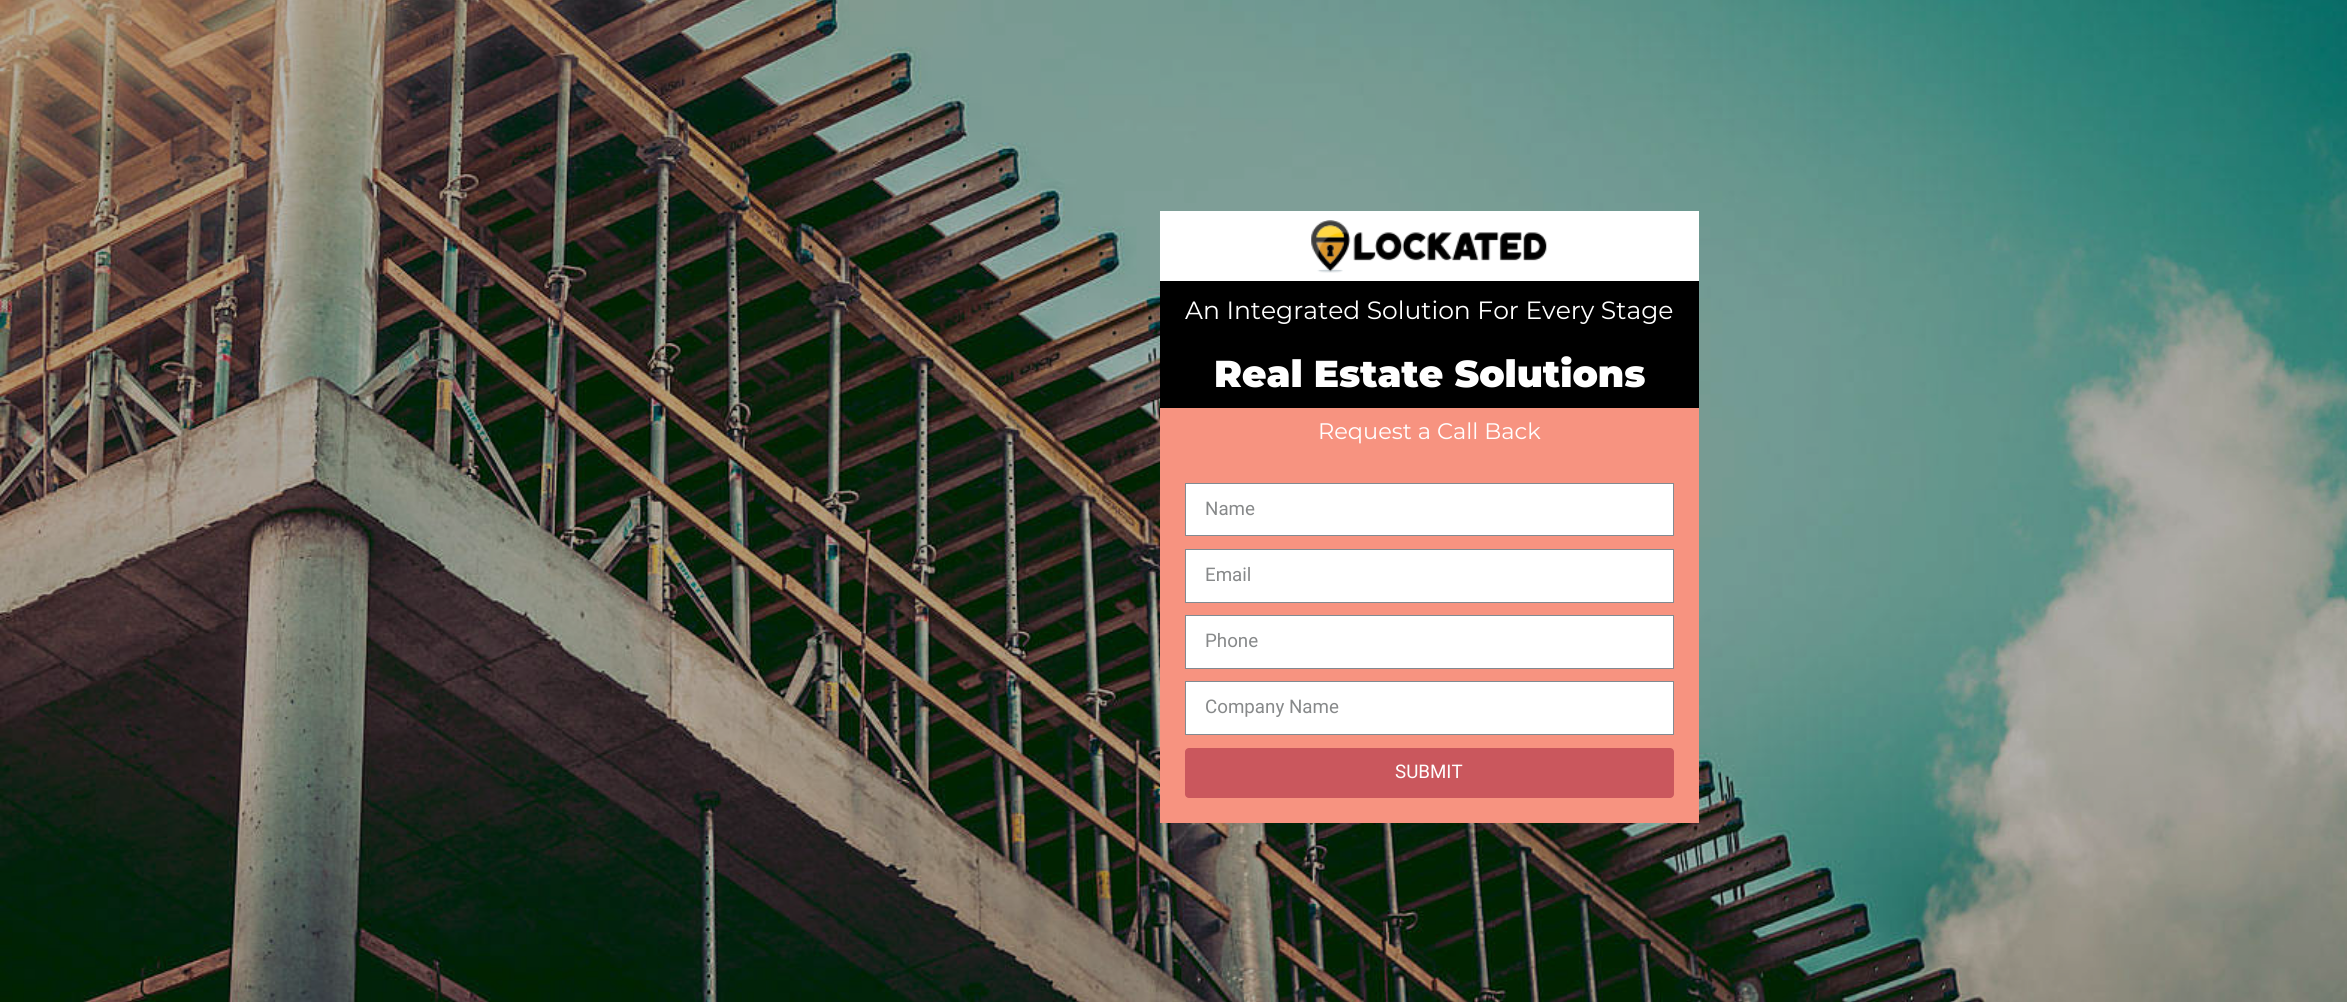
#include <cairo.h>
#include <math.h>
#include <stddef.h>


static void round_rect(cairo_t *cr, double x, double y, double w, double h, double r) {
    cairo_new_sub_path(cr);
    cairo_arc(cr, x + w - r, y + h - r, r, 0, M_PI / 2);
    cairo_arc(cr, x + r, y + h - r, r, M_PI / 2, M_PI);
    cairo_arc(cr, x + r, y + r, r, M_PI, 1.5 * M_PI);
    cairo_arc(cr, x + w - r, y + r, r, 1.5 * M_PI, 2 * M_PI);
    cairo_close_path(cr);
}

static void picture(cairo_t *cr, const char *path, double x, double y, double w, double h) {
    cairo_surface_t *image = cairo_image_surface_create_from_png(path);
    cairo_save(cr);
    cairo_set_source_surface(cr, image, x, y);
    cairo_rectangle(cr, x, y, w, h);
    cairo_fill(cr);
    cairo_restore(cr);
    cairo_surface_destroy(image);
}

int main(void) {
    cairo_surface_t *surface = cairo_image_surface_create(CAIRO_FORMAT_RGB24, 2347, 1002);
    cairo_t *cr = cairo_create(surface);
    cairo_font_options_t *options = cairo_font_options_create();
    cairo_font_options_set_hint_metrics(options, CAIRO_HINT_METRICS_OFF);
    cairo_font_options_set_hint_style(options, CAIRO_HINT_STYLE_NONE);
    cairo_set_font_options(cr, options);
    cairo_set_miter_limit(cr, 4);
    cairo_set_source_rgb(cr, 1, 1, 1);
    cairo_paint(cr);
    picture(cr, "img1.png", 0, 0, 2347, 1002);
    cairo_set_source_rgb(cr, 1, 1, 1);
    cairo_rectangle(cr, 1160, 211, 539, 70);
    cairo_fill(cr);
    picture(cr, "img2.png", 1311, 220, 236, 53);
    cairo_set_source_rgb(cr, 0, 0, 0);
    cairo_rectangle(cr, 1160, 281, 539, 127);
    cairo_fill(cr);
    cairo_select_font_face(cr, "Montserrat", CAIRO_FONT_SLANT_NORMAL, CAIRO_FONT_WEIGHT_NORMAL);
    cairo_set_font_size(cr, 25);
    cairo_set_source_rgb(cr, 1, 1, 1);
    cairo_move_to(cr, 1185, 319);
    cairo_show_text(cr, "An Integrated Solution For Every Stage");
    cairo_select_font_face(cr, "Montserrat Black", CAIRO_FONT_SLANT_NORMAL, CAIRO_FONT_WEIGHT_NORMAL);
    cairo_set_font_size(cr, 37.5);
    cairo_move_to(cr, 1214, 387);
    cairo_show_text(cr, "Real Estate Solutions");
    cairo_set_source_rgb(cr, 0.965, 0.576, 0.502);
    cairo_rectangle(cr, 1160, 408, 539, 415);
    cairo_fill(cr);
    cairo_select_font_face(cr, "Montserrat", CAIRO_FONT_SLANT_NORMAL, CAIRO_FONT_WEIGHT_NORMAL);
    cairo_set_font_size(cr, 22.5);
    cairo_set_source_rgb(cr, 1, 1, 1);
    cairo_move_to(cr, 1318, 439);
    cairo_show_text(cr, "Request a Call Back");
    cairo_rectangle(cr, 1185.5, 483.5, 488, 52);
    cairo_fill_preserve(cr);
    cairo_set_source_rgb(cr, 0.506, 0.541, 0.569);
    cairo_set_line_width(cr, 1);
    cairo_stroke(cr);
    cairo_select_font_face(cr, "Roboto", CAIRO_FONT_SLANT_NORMAL, CAIRO_FONT_WEIGHT_NORMAL);
    cairo_set_font_size(cr, 18.75);
    cairo_set_source_rgb(cr, 0.529, 0.537, 0.541);
    cairo_move_to(cr, 1205, 515);
    cairo_show_text(cr, "Name");
    cairo_set_source_rgb(cr, 1, 1, 1);
    cairo_rectangle(cr, 1185.5, 549.5, 488, 53);
    cairo_fill_preserve(cr);
    cairo_set_source_rgb(cr, 0.506, 0.541, 0.569);
    cairo_stroke(cr);
    cairo_set_source_rgb(cr, 0.529, 0.537, 0.541);
    cairo_move_to(cr, 1205, 581);
    cairo_show_text(cr, "Email");
    cairo_set_source_rgb(cr, 1, 1, 1);
    cairo_rectangle(cr, 1185.5, 615.5, 488, 53);
    cairo_fill_preserve(cr);
    cairo_set_source_rgb(cr, 0.506, 0.541, 0.569);
    cairo_stroke(cr);
    cairo_set_source_rgb(cr, 0.529, 0.537, 0.541);
    cairo_move_to(cr, 1205, 647);
    cairo_show_text(cr, "Phone");
    cairo_set_source_rgb(cr, 1, 1, 1);
    cairo_rectangle(cr, 1185.5, 681.5, 488, 53);
    cairo_fill_preserve(cr);
    cairo_set_source_rgb(cr, 0.506, 0.541, 0.569);
    cairo_stroke(cr);
    cairo_set_source_rgb(cr, 0.529, 0.537, 0.541);
    cairo_move_to(cr, 1205, 713);
    cairo_show_text(cr, "Company Name");
    cairo_set_source_rgb(cr, 0.792, 0.341, 0.365);
    round_rect(cr, 1185, 748, 489, 50, 4);
    cairo_fill(cr);
    cairo_set_source_rgb(cr, 1, 1, 1);
    cairo_move_to(cr, 1395, 778);
    cairo_show_text(cr, "SUBMIT");
    cairo_surface_write_to_png(surface, "page.png");
    cairo_font_options_destroy(options);
    cairo_destroy(cr);
    cairo_surface_destroy(surface);
    return 0;
}
